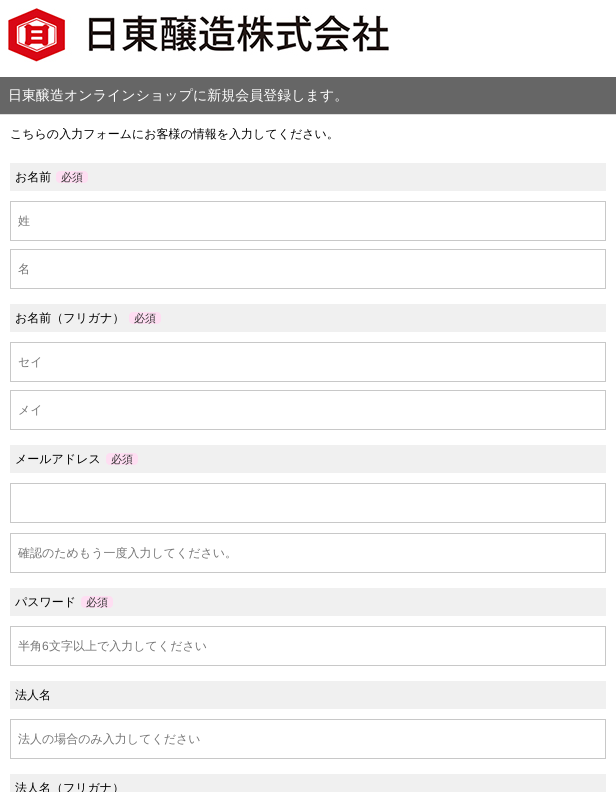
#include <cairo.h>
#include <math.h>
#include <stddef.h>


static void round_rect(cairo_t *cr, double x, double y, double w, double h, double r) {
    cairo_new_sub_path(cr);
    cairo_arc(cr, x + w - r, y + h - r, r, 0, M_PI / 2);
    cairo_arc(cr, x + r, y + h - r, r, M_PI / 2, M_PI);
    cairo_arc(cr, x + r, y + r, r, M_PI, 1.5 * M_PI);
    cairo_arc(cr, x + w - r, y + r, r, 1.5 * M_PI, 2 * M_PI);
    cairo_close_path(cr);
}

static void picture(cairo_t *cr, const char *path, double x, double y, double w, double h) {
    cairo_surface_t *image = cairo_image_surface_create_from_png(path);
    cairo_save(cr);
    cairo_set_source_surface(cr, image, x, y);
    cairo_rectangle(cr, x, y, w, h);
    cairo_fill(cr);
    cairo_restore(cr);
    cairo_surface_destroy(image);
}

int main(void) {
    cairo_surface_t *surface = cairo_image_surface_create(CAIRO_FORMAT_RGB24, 616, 792);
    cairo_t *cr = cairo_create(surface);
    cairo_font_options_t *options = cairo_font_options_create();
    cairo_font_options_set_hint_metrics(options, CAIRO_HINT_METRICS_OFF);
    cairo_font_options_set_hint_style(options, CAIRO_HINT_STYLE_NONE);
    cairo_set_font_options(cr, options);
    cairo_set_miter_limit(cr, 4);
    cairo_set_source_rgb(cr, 1, 1, 1);
    cairo_paint(cr);
    picture(cr, "img1.png", 8, 8, 381, 54);
    cairo_set_source_rgb(cr, 0.4, 0.4, 0.4);
    cairo_rectangle(cr, 0, 77, 616, 37);
    cairo_fill(cr);
    cairo_set_source_rgb(cr, 0.863, 0.863, 0.863);
    cairo_rectangle(cr, 0, 114, 616, 1);
    cairo_fill(cr);
    cairo_select_font_face(cr, "WenQuanYi Zen Hei Medium", CAIRO_FONT_SLANT_NORMAL, CAIRO_FONT_WEIGHT_NORMAL);
    cairo_set_font_size(cr, 14);
    cairo_set_source_rgb(cr, 1, 1, 1);
    cairo_move_to(cr, 8, 100);
    cairo_show_text(cr, "日東醸造オンラインショップに新規会員登録します。");
    cairo_set_font_size(cr, 12);
    cairo_set_source_rgb(cr, 0, 0, 0);
    cairo_move_to(cr, 10, 138);
    cairo_show_text(cr, "こちらの入力フォームにお客様の情報を入力してください。");
    cairo_set_source_rgb(cr, 0.941, 0.941, 0.941);
    cairo_rectangle(cr, 10, 163, 596, 28);
    cairo_fill(cr);
    cairo_set_source_rgb(cr, 0, 0, 0);
    cairo_move_to(cr, 15, 181);
    cairo_show_text(cr, "お名前");
    cairo_set_source_rgb(cr, 0.996, 0.871, 0.949);
    round_rect(cr, 56, 171, 32, 12, 4);
    cairo_fill(cr);
    cairo_set_font_size(cr, 11);
    cairo_set_source_rgb(cr, 0.2, 0.2, 0.2);
    cairo_move_to(cr, 61, 181);
    cairo_show_text(cr, "必須");
    cairo_rectangle(cr, 10.5, 201.5, 595, 39);
    cairo_set_source_rgb(cr, 0.784, 0.784, 0.784);
    cairo_set_line_width(cr, 1);
    cairo_stroke(cr);
    cairo_set_font_size(cr, 12);
    cairo_set_source_rgb(cr, 0.459, 0.459, 0.459);
    cairo_move_to(cr, 18, 225);
    cairo_show_text(cr, "姓");
    cairo_rectangle(cr, 10.5, 249.5, 595, 39);
    cairo_set_source_rgb(cr, 0.784, 0.784, 0.784);
    cairo_stroke(cr);
    cairo_set_source_rgb(cr, 0.459, 0.459, 0.459);
    cairo_move_to(cr, 18, 273);
    cairo_show_text(cr, "名");
    cairo_set_source_rgb(cr, 0.941, 0.941, 0.941);
    cairo_rectangle(cr, 10, 304, 596, 28);
    cairo_fill(cr);
    cairo_set_source_rgb(cr, 0, 0, 0);
    cairo_move_to(cr, 15, 322);
    cairo_show_text(cr, "お名前（フリガナ）");
    cairo_set_source_rgb(cr, 0.996, 0.871, 0.949);
    round_rect(cr, 129, 312, 32, 12, 4);
    cairo_fill(cr);
    cairo_set_font_size(cr, 11);
    cairo_set_source_rgb(cr, 0.2, 0.2, 0.2);
    cairo_move_to(cr, 134, 322);
    cairo_show_text(cr, "必須");
    cairo_rectangle(cr, 10.5, 342.5, 595, 39);
    cairo_set_source_rgb(cr, 0.784, 0.784, 0.784);
    cairo_stroke(cr);
    cairo_set_font_size(cr, 12);
    cairo_set_source_rgb(cr, 0.459, 0.459, 0.459);
    cairo_move_to(cr, 18, 366);
    cairo_show_text(cr, "セイ");
    cairo_rectangle(cr, 10.5, 390.5, 595, 39);
    cairo_set_source_rgb(cr, 0.784, 0.784, 0.784);
    cairo_stroke(cr);
    cairo_set_source_rgb(cr, 0.459, 0.459, 0.459);
    cairo_move_to(cr, 18, 414);
    cairo_show_text(cr, "メイ");
    cairo_set_source_rgb(cr, 0.941, 0.941, 0.941);
    cairo_rectangle(cr, 10, 445, 596, 28);
    cairo_fill(cr);
    cairo_set_source_rgb(cr, 0, 0, 0);
    cairo_move_to(cr, 15, 463);
    cairo_show_text(cr, "メールアドレス");
    cairo_set_source_rgb(cr, 0.996, 0.871, 0.949);
    round_rect(cr, 106, 453, 32, 12, 4);
    cairo_fill(cr);
    cairo_set_font_size(cr, 11);
    cairo_set_source_rgb(cr, 0.2, 0.2, 0.2);
    cairo_move_to(cr, 111, 463);
    cairo_show_text(cr, "必須");
    cairo_rectangle(cr, 10.5, 483.5, 595, 39);
    cairo_set_source_rgb(cr, 0.784, 0.784, 0.784);
    cairo_stroke(cr);
    cairo_rectangle(cr, 10.5, 533.5, 595, 39);
    cairo_stroke(cr);
    cairo_set_font_size(cr, 12);
    cairo_set_source_rgb(cr, 0.459, 0.459, 0.459);
    cairo_move_to(cr, 18, 557);
    cairo_show_text(cr, "確認のためもう一度入力してください。");
    cairo_set_source_rgb(cr, 0.941, 0.941, 0.941);
    cairo_rectangle(cr, 10, 588, 596, 28);
    cairo_fill(cr);
    cairo_set_source_rgb(cr, 0, 0, 0);
    cairo_move_to(cr, 15, 606);
    cairo_show_text(cr, "パスワード");
    cairo_set_source_rgb(cr, 0.996, 0.871, 0.949);
    round_rect(cr, 81, 596, 32, 12, 4);
    cairo_fill(cr);
    cairo_set_font_size(cr, 11);
    cairo_set_source_rgb(cr, 0.2, 0.2, 0.2);
    cairo_move_to(cr, 86, 606);
    cairo_show_text(cr, "必須");
    cairo_rectangle(cr, 10.5, 626.5, 595, 39);
    cairo_set_source_rgb(cr, 0.784, 0.784, 0.784);
    cairo_stroke(cr);
    cairo_set_font_size(cr, 12);
    cairo_set_source_rgb(cr, 0.459, 0.459, 0.459);
    cairo_move_to(cr, 18, 650);
    cairo_show_text(cr, "半角");
    cairo_select_font_face(cr, "Liberation Sans", CAIRO_FONT_SLANT_NORMAL, CAIRO_FONT_WEIGHT_NORMAL);
    cairo_move_to(cr, 42, 650);
    cairo_show_text(cr, "6");
    cairo_select_font_face(cr, "WenQuanYi Zen Hei Medium", CAIRO_FONT_SLANT_NORMAL, CAIRO_FONT_WEIGHT_NORMAL);
    cairo_move_to(cr, 49, 650);
    cairo_show_text(cr, "文字以上で入力してください");
    cairo_set_source_rgb(cr, 0.941, 0.941, 0.941);
    cairo_rectangle(cr, 10, 681, 596, 28);
    cairo_fill(cr);
    cairo_set_source_rgb(cr, 0, 0, 0);
    cairo_move_to(cr, 15, 699);
    cairo_show_text(cr, "法人名");
    cairo_rectangle(cr, 10.5, 719.5, 595, 39);
    cairo_set_source_rgb(cr, 0.784, 0.784, 0.784);
    cairo_stroke(cr);
    cairo_set_source_rgb(cr, 0.459, 0.459, 0.459);
    cairo_move_to(cr, 18, 743);
    cairo_show_text(cr, "法人の場合のみ入力してください");
    cairo_set_source_rgb(cr, 0.941, 0.941, 0.941);
    cairo_rectangle(cr, 10, 774, 596, 18);
    cairo_fill(cr);
    cairo_set_source_rgb(cr, 0, 0, 0);
    cairo_move_to(cr, 15, 792);
    cairo_show_text(cr, "法人名（フリガナ）");
    cairo_surface_write_to_png(surface, "page.png");
    cairo_font_options_destroy(options);
    cairo_destroy(cr);
    cairo_surface_destroy(surface);
    return 0;
}
